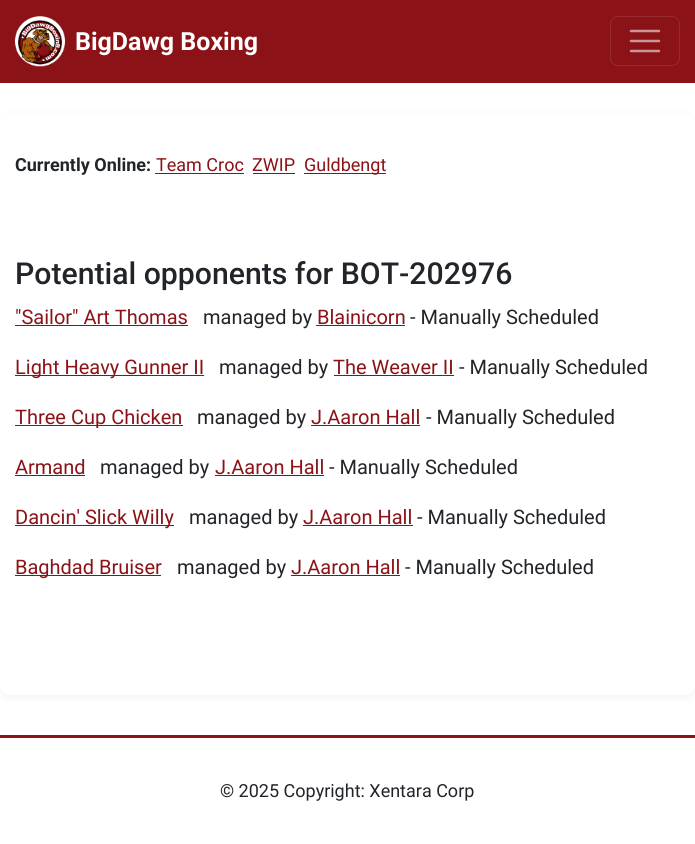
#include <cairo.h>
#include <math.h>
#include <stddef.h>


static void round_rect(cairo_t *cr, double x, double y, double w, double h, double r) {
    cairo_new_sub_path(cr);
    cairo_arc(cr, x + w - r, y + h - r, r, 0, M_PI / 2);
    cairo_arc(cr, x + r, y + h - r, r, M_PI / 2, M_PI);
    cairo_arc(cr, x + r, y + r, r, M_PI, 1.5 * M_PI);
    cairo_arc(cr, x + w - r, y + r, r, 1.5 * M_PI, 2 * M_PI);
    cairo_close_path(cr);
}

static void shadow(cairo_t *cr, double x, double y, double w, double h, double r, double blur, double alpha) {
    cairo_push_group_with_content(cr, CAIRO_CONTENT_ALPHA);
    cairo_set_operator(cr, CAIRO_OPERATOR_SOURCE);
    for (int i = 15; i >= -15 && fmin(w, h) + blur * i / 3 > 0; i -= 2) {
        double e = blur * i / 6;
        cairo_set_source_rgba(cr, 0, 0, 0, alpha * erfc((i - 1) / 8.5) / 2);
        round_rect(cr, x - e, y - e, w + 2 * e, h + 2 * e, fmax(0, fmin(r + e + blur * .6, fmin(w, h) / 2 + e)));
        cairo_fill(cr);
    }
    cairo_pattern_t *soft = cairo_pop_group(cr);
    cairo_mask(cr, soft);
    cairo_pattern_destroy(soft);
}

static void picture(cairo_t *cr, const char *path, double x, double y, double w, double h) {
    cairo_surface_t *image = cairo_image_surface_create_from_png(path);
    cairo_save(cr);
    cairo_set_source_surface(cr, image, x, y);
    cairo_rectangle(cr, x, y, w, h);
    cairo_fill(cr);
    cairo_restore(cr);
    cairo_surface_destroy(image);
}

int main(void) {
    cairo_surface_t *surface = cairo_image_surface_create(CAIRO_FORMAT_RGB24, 695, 844);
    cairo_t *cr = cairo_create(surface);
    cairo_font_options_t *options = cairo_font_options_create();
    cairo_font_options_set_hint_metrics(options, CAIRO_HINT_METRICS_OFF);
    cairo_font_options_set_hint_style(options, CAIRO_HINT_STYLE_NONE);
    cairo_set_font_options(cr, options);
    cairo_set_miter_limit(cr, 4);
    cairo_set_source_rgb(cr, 1, 1, 1);
    cairo_paint(cr);
    cairo_set_source_rgb(cr, 0.545, 0.071, 0.09);
    cairo_rectangle(cr, 0, 0, 695, 83);
    cairo_fill(cr);
    picture(cr, "img1.png", 15, 16, 50, 51);
    cairo_select_font_face(cr, "Roboto", CAIRO_FONT_SLANT_NORMAL, CAIRO_FONT_WEIGHT_BOLD);
    cairo_set_font_size(cr, 25);
    cairo_set_source_rgb(cr, 1, 1, 1);
    cairo_move_to(cr, 75, 50);
    cairo_show_text(cr, "BigDawg Boxing");
    round_rect(cr, 610.5, 16.5, 69, 49, 7.5);
    cairo_set_source_rgb(cr, 0.592, 0.165, 0.18);
    cairo_set_line_width(cr, 1);
    cairo_stroke(cr);
    cairo_new_path(cr);
    cairo_move_to(cr, 631, 31);
    cairo_line_to(cr, 659, 31);
    cairo_move_to(cr, 631, 41);
    cairo_line_to(cr, 659, 41);
    cairo_move_to(cr, 631, 51);
    cairo_line_to(cr, 659, 51);
    cairo_set_source_rgb(cr, 0.796, 0.58, 0.592);
    cairo_set_line_width(cr, 2.5);
    cairo_set_line_cap(cr, CAIRO_LINE_CAP_ROUND);
    cairo_stroke(cr);
    cairo_set_source_rgb(cr, 0, 0, 0);
    shadow(cr, 0, 115, 695, 583, 10, 4, 0.05);
    cairo_set_source_rgb(cr, 1, 1, 1);
    round_rect(cr, 0, 113, 695, 582, 10);
    cairo_fill(cr);
    cairo_set_font_size(cr, 18);
    cairo_set_source_rgb(cr, 0.129, 0.145, 0.161);
    cairo_move_to(cr, 15, 171);
    cairo_show_text(cr, "Currently Online:");
    cairo_select_font_face(cr, "Roboto", CAIRO_FONT_SLANT_NORMAL, CAIRO_FONT_WEIGHT_NORMAL);
    cairo_set_source_rgb(cr, 0.545, 0.071, 0.09);
    cairo_move_to(cr, 156, 171);
    cairo_show_text(cr, "Team Croc");
    cairo_rectangle(cr, 155, 173, 89, 1);
    cairo_fill(cr);
    cairo_move_to(cr, 252, 171);
    cairo_show_text(cr, "ZWIP");
    cairo_rectangle(cr, 253, 173, 42, 1);
    cairo_fill(cr);
    cairo_rectangle(cr, 304, 173, 82, 1);
    cairo_fill(cr);
    cairo_move_to(cr, 304, 171);
    cairo_show_text(cr, "Guldbengt");
    cairo_select_font_face(cr, "Roboto Medium", CAIRO_FONT_SLANT_NORMAL, CAIRO_FONT_WEIGHT_NORMAL);
    cairo_set_font_size(cr, 30.2);
    cairo_set_source_rgb(cr, 0.129, 0.145, 0.161);
    cairo_move_to(cr, 15, 284);
    cairo_show_text(cr, "Potential opponents for BOT-202976");
    cairo_select_font_face(cr, "Roboto", CAIRO_FONT_SLANT_NORMAL, CAIRO_FONT_WEIGHT_NORMAL);
    cairo_set_font_size(cr, 20);
    cairo_set_source_rgb(cr, 0.545, 0.071, 0.09);
    cairo_move_to(cr, 15, 324);
    cairo_show_text(cr, "\"Sailor\" Art Thomas");
    cairo_rectangle(cr, 15, 325, 173, 1);
    cairo_fill(cr);
    cairo_set_source_rgb(cr, 0.129, 0.145, 0.161);
    cairo_move_to(cr, 203, 324);
    cairo_show_text(cr, "managed by");
    cairo_set_source_rgb(cr, 0.545, 0.071, 0.09);
    cairo_move_to(cr, 317, 324);
    cairo_show_text(cr, "Blainicorn");
    cairo_rectangle(cr, 316, 325, 89, 1);
    cairo_fill(cr);
    cairo_set_source_rgb(cr, 0.129, 0.145, 0.161);
    cairo_move_to(cr, 410, 324);
    cairo_show_text(cr, "- Manually Scheduled");
    cairo_set_source_rgb(cr, 0.545, 0.071, 0.09);
    cairo_rectangle(cr, 15, 375, 189, 1);
    cairo_fill(cr);
    cairo_move_to(cr, 15, 374);
    cairo_show_text(cr, "Light Heavy Gunner II");
    cairo_set_source_rgb(cr, 0.129, 0.145, 0.161);
    cairo_move_to(cr, 219, 374);
    cairo_show_text(cr, "managed by");
    cairo_set_source_rgb(cr, 0.545, 0.071, 0.09);
    cairo_move_to(cr, 333, 374);
    cairo_show_text(cr, "The Weaver II");
    cairo_rectangle(cr, 334, 375, 120, 1);
    cairo_fill(cr);
    cairo_set_source_rgb(cr, 0.129, 0.145, 0.161);
    cairo_move_to(cr, 459, 374);
    cairo_show_text(cr, "- Manually Scheduled");
    cairo_set_source_rgb(cr, 0.545, 0.071, 0.09);
    cairo_rectangle(cr, 15, 425, 168, 1);
    cairo_fill(cr);
    cairo_move_to(cr, 15, 424);
    cairo_show_text(cr, "Three Cup Chicken");
    cairo_set_source_rgb(cr, 0.129, 0.145, 0.161);
    cairo_move_to(cr, 197, 424);
    cairo_show_text(cr, "managed by");
    cairo_set_source_rgb(cr, 0.545, 0.071, 0.09);
    cairo_move_to(cr, 311, 424);
    cairo_show_text(cr, "J.Aaron Hall");
    cairo_rectangle(cr, 311, 425, 109, 1);
    cairo_fill(cr);
    cairo_set_source_rgb(cr, 0.129, 0.145, 0.161);
    cairo_move_to(cr, 426, 424);
    cairo_show_text(cr, "- Manually Scheduled");
    cairo_set_source_rgb(cr, 0.545, 0.071, 0.09);
    cairo_move_to(cr, 15, 474);
    cairo_show_text(cr, "Armand");
    cairo_rectangle(cr, 15, 475, 70, 1);
    cairo_fill(cr);
    cairo_set_source_rgb(cr, 0.129, 0.145, 0.161);
    cairo_move_to(cr, 100, 474);
    cairo_show_text(cr, "managed by");
    cairo_set_source_rgb(cr, 0.545, 0.071, 0.09);
    cairo_move_to(cr, 215, 474);
    cairo_show_text(cr, "J.Aaron Hall");
    cairo_rectangle(cr, 215, 475, 109, 1);
    cairo_fill(cr);
    cairo_set_source_rgb(cr, 0.129, 0.145, 0.161);
    cairo_move_to(cr, 329, 474);
    cairo_show_text(cr, "- Manually Scheduled");
    cairo_set_source_rgb(cr, 0.545, 0.071, 0.09);
    cairo_rectangle(cr, 15, 525, 159, 1);
    cairo_fill(cr);
    cairo_move_to(cr, 15, 524);
    cairo_show_text(cr, "Dancin' Slick Willy");
    cairo_set_source_rgb(cr, 0.129, 0.145, 0.161);
    cairo_move_to(cr, 189, 524);
    cairo_show_text(cr, "managed by");
    cairo_set_source_rgb(cr, 0.545, 0.071, 0.09);
    cairo_move_to(cr, 303, 524);
    cairo_show_text(cr, "J.Aaron Hall");
    cairo_rectangle(cr, 303, 525, 110, 1);
    cairo_fill(cr);
    cairo_set_source_rgb(cr, 0.129, 0.145, 0.161);
    cairo_move_to(cr, 417, 524);
    cairo_show_text(cr, "- Manually Scheduled");
    cairo_set_source_rgb(cr, 0.545, 0.071, 0.09);
    cairo_rectangle(cr, 15, 575, 146, 1);
    cairo_fill(cr);
    cairo_move_to(cr, 15, 574);
    cairo_show_text(cr, "Baghdad Bruiser");
    cairo_set_source_rgb(cr, 0.129, 0.145, 0.161);
    cairo_move_to(cr, 177, 574);
    cairo_show_text(cr, "managed by");
    cairo_set_source_rgb(cr, 0.545, 0.071, 0.09);
    cairo_move_to(cr, 291, 574);
    cairo_show_text(cr, "J.Aaron Hall");
    cairo_rectangle(cr, 291, 575, 109, 1);
    cairo_fill(cr);
    cairo_set_source_rgb(cr, 0.129, 0.145, 0.161);
    cairo_move_to(cr, 405, 574);
    cairo_show_text(cr, "- Manually Scheduled");
    cairo_set_source_rgb(cr, 0.545, 0.071, 0.09);
    cairo_rectangle(cr, 0, 735, 695, 3);
    cairo_fill(cr);
    cairo_set_font_size(cr, 18);
    cairo_set_source_rgb(cr, 0.129, 0.145, 0.161);
    cairo_move_to(cr, 220, 797);
    cairo_show_text(cr, "© 2025 Copyright: Xentara Corp");
    cairo_surface_write_to_png(surface, "page.png");
    cairo_font_options_destroy(options);
    cairo_destroy(cr);
    cairo_surface_destroy(surface);
    return 0;
}
